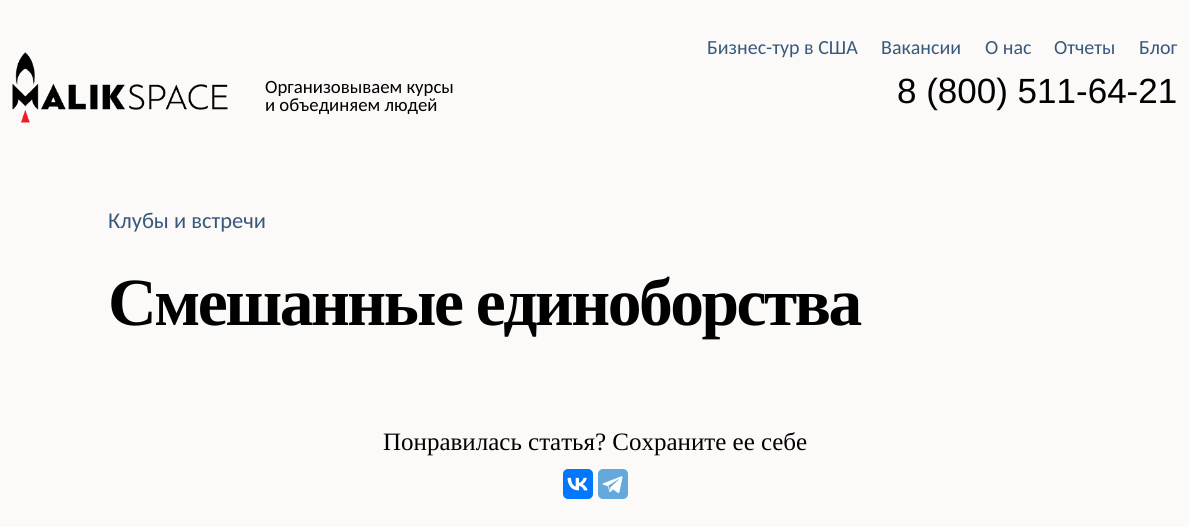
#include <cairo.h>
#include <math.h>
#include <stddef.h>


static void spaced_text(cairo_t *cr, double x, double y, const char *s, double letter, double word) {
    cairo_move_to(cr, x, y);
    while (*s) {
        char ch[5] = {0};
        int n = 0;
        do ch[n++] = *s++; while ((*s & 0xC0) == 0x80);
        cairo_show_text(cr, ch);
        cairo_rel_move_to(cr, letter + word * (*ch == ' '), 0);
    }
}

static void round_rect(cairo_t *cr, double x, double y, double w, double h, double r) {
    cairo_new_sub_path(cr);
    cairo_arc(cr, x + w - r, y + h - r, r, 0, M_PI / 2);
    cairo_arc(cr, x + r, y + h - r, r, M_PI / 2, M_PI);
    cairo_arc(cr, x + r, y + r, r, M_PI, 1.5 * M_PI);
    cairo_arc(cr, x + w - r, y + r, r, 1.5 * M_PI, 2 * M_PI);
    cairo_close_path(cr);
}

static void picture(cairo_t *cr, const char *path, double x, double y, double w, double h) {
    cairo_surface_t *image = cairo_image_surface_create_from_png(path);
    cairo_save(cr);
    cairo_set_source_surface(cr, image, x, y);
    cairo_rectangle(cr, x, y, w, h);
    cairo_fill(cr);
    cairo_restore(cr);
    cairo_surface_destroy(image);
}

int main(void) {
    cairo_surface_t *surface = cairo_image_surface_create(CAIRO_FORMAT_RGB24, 1189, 527);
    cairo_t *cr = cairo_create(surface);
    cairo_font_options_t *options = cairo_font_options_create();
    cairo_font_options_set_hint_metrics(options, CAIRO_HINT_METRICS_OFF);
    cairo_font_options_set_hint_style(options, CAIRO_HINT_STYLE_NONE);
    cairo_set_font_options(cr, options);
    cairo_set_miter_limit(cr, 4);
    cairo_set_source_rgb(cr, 0.988, 0.98, 0.976);
    cairo_paint(cr);
    cairo_select_font_face(cr, "Carlito", CAIRO_FONT_SLANT_NORMAL, CAIRO_FONT_WEIGHT_NORMAL);
    cairo_set_font_size(cr, 20);
    cairo_set_source_rgb(cr, 0.227, 0.345, 0.482);
    cairo_move_to(cr, 707, 54);
    cairo_show_text(cr, "Бизнес-тур в США");
    cairo_move_to(cr, 881, 54);
    cairo_show_text(cr, "Вакансии");
    cairo_move_to(cr, 985, 54);
    cairo_show_text(cr, "О нас");
    cairo_move_to(cr, 1054, 54);
    cairo_show_text(cr, "Отчеты");
    cairo_move_to(cr, 1139, 54);
    cairo_show_text(cr, "Блог");
    picture(cr, "img1.png", 12, 52, 216, 71);
    cairo_set_font_size(cr, 18.75);
    cairo_set_source_rgb(cr, 0, 0, 0);
    cairo_move_to(cr, 265, 93);
    cairo_show_text(cr, "Организовываем курсы");
    cairo_move_to(cr, 265, 111);
    cairo_show_text(cr, "и объединяем людей");
    cairo_select_font_face(cr, "Liberation Sans", CAIRO_FONT_SLANT_NORMAL, CAIRO_FONT_WEIGHT_NORMAL);
    cairo_set_font_size(cr, 35);
    cairo_move_to(cr, 897, 103);
    cairo_show_text(cr, "8 (800) 511-64-21");
    cairo_select_font_face(cr, "Carlito", CAIRO_FONT_SLANT_NORMAL, CAIRO_FONT_WEIGHT_NORMAL);
    cairo_set_font_size(cr, 22.5);
    cairo_set_source_rgb(cr, 0.227, 0.345, 0.482);
    cairo_move_to(cr, 108, 228);
    cairo_show_text(cr, "Клубы и встречи");
    cairo_select_font_face(cr, "Liberation Serif", CAIRO_FONT_SLANT_NORMAL, CAIRO_FONT_WEIGHT_BOLD);
    cairo_set_font_size(cr, 67.5);
    cairo_set_source_rgb(cr, 0, 0, 0);
    spaced_text(cr, 108, 325, "Смешанные единоборства", -2.5, 0);
    cairo_select_font_face(cr, "Liberation Serif", CAIRO_FONT_SLANT_NORMAL, CAIRO_FONT_WEIGHT_NORMAL);
    cairo_set_font_size(cr, 25);
    cairo_move_to(cr, 383, 450);
    cairo_show_text(cr, "Понравилась статья? Сохраните ее себе");
    cairo_set_source_rgb(cr, 0, 0.467, 1);
    round_rect(cr, 563, 469, 30, 30, 5);
    cairo_fill(cr);
    picture(cr, "img2.png", 567, 477, 21, 14);
    cairo_set_source_rgb(cr, 0.392, 0.663, 0.863);
    round_rect(cr, 598, 469, 30, 30, 5);
    cairo_fill(cr);
    picture(cr, "img3.png", 602, 476, 21, 17);
    cairo_surface_write_to_png(surface, "page.png");
    cairo_font_options_destroy(options);
    cairo_destroy(cr);
    cairo_surface_destroy(surface);
    return 0;
}
